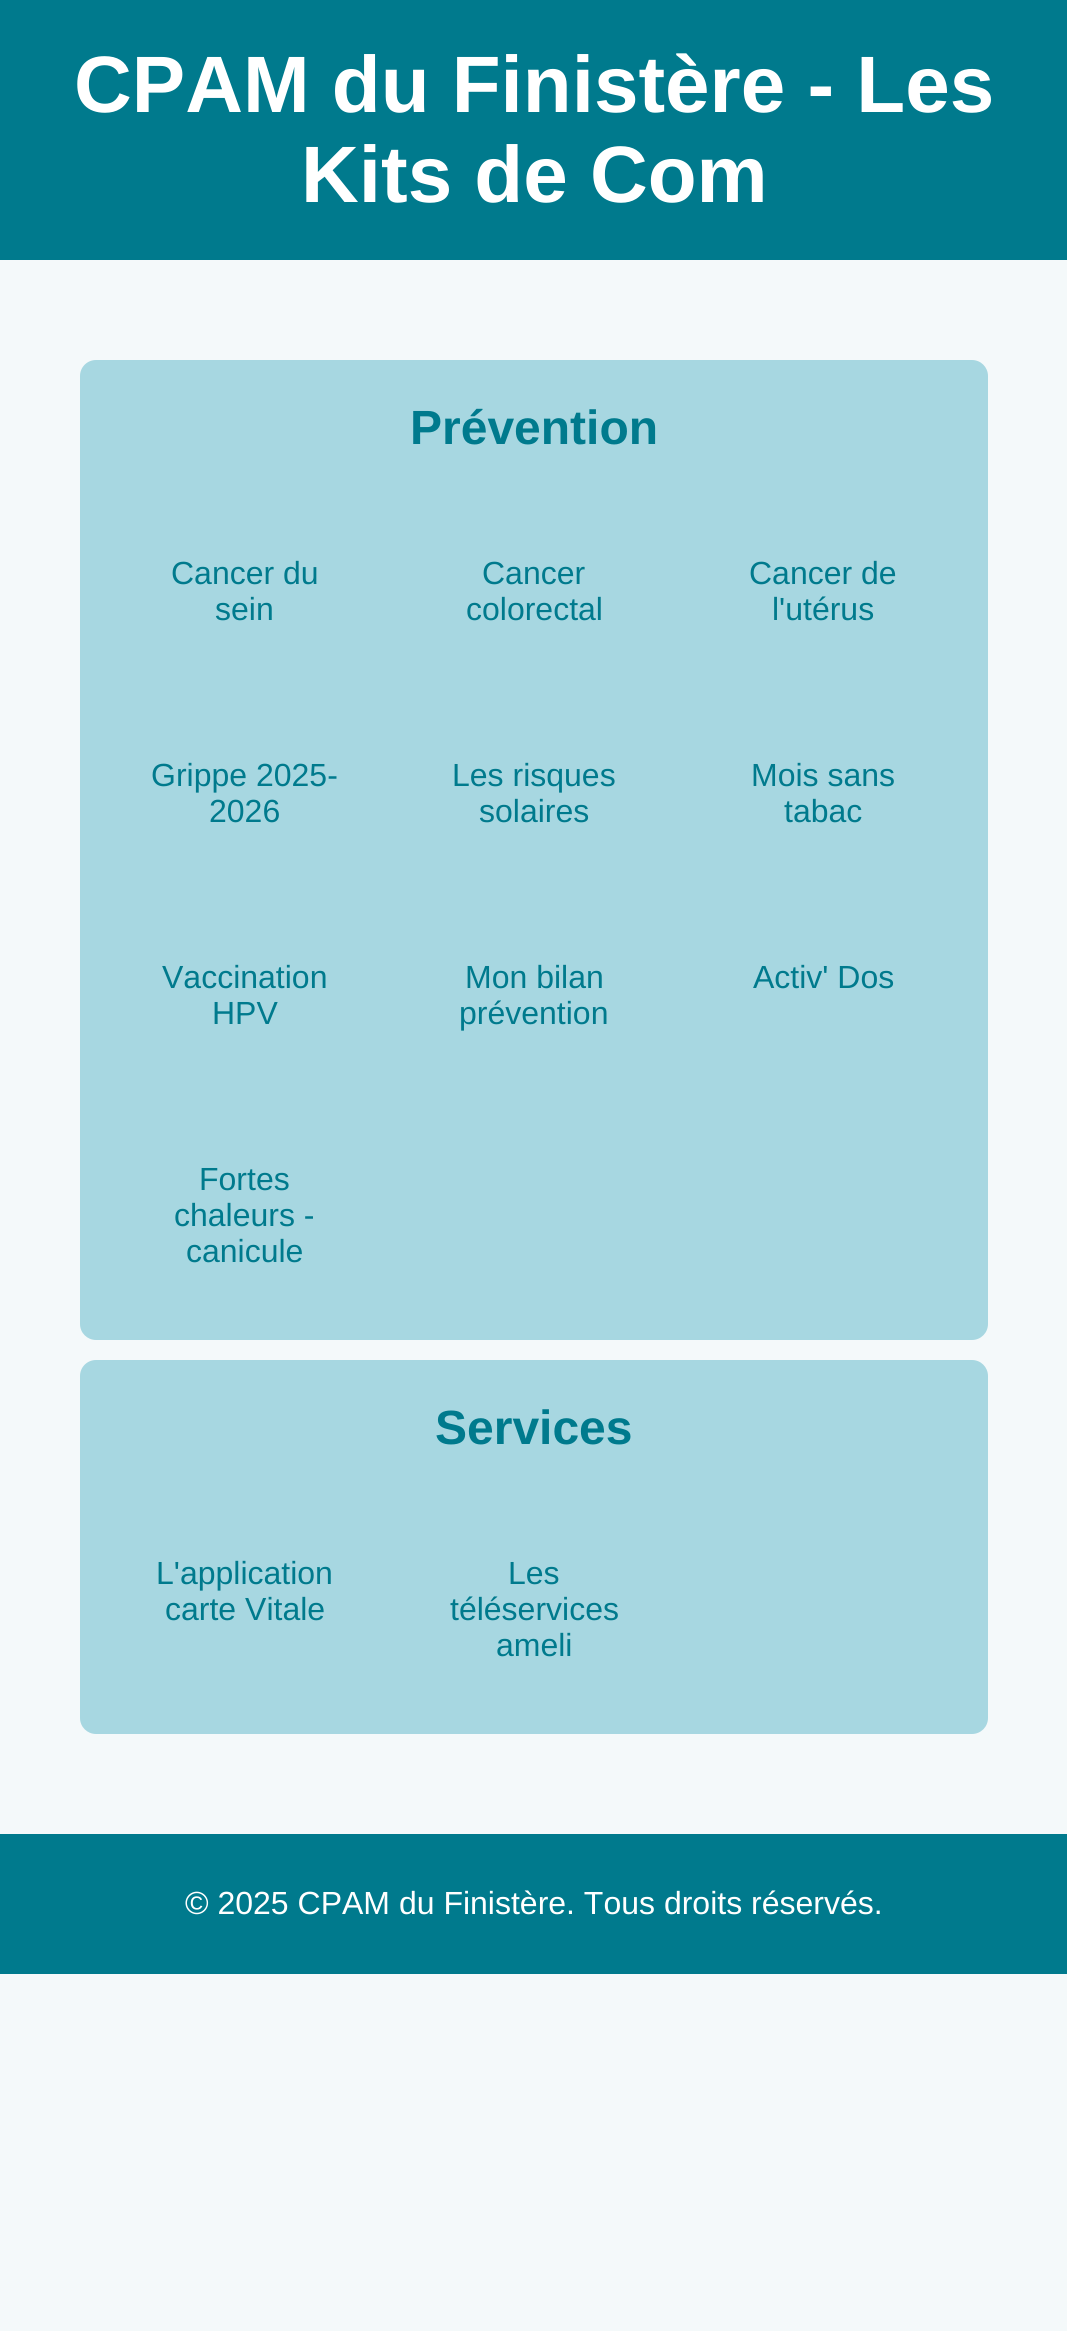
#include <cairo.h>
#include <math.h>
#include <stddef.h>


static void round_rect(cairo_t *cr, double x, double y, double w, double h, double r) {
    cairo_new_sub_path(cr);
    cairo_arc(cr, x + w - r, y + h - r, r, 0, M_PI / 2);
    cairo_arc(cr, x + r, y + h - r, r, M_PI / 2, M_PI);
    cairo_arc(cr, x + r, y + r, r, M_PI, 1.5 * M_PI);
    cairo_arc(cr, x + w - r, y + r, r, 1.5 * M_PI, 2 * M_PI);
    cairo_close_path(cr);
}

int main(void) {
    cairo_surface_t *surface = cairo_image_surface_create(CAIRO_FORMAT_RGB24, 1067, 2331);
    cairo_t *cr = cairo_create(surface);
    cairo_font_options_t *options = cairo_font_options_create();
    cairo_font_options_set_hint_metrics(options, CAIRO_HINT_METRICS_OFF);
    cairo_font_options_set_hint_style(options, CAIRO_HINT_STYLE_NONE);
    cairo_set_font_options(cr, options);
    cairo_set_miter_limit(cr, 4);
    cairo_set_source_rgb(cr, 0.957, 0.976, 0.98);
    cairo_paint(cr);
    cairo_set_source_rgb(cr, 0, 0.478, 0.553);
    cairo_rectangle(cr, 0, 0, 1067, 260);
    cairo_fill(cr);
    cairo_select_font_face(cr, "Liberation Sans", CAIRO_FONT_SLANT_NORMAL, CAIRO_FONT_WEIGHT_BOLD);
    cairo_set_font_size(cr, 80);
    cairo_set_source_rgb(cr, 1, 1, 1);
    cairo_move_to(cr, 74, 112);
    cairo_show_text(cr, "CPAM du Finistère - Les");
    cairo_move_to(cr, 301, 202);
    cairo_show_text(cr, "Kits de Com");
    cairo_set_source_rgb(cr, 0.655, 0.843, 0.882);
    round_rect(cr, 80, 360, 908, 980, 16);
    cairo_fill(cr);
    cairo_set_font_size(cr, 48);
    cairo_set_source_rgb(cr, 0, 0.478, 0.553);
    cairo_move_to(cr, 410, 444);
    cairo_show_text(cr, "Prévention");
    cairo_select_font_face(cr, "Liberation Sans", CAIRO_FONT_SLANT_NORMAL, CAIRO_FONT_WEIGHT_NORMAL);
    cairo_set_font_size(cr, 32);
    cairo_move_to(cr, 171, 584);
    cairo_show_text(cr, "Cancer du");
    cairo_move_to(cr, 215, 620);
    cairo_show_text(cr, "sein");
    cairo_move_to(cr, 482, 584);
    cairo_show_text(cr, "Cancer");
    cairo_move_to(cr, 466, 620);
    cairo_show_text(cr, "colorectal");
    cairo_move_to(cr, 749, 584);
    cairo_show_text(cr, "Cancer de");
    cairo_move_to(cr, 772, 620);
    cairo_show_text(cr, "l'utérus");
    cairo_move_to(cr, 151, 786);
    cairo_show_text(cr, "Grippe 2025-");
    cairo_move_to(cr, 209, 822);
    cairo_show_text(cr, "2026");
    cairo_move_to(cr, 452, 786);
    cairo_show_text(cr, "Les risques");
    cairo_move_to(cr, 479, 822);
    cairo_show_text(cr, "solaires");
    cairo_move_to(cr, 751, 786);
    cairo_show_text(cr, "Mois sans");
    cairo_move_to(cr, 784, 822);
    cairo_show_text(cr, "tabac");
    cairo_move_to(cr, 162, 988);
    cairo_show_text(cr, "Vaccination");
    cairo_move_to(cr, 212, 1024);
    cairo_show_text(cr, "HPV");
    cairo_move_to(cr, 465, 988);
    cairo_show_text(cr, "Mon bilan");
    cairo_move_to(cr, 459, 1024);
    cairo_show_text(cr, "prévention");
    cairo_move_to(cr, 753, 988);
    cairo_show_text(cr, "Activ' Dos");
    cairo_move_to(cr, 199, 1190);
    cairo_show_text(cr, "Fortes");
    cairo_move_to(cr, 174, 1226);
    cairo_show_text(cr, "chaleurs -");
    cairo_move_to(cr, 186, 1262);
    cairo_show_text(cr, "canicule");
    cairo_set_source_rgb(cr, 0.655, 0.843, 0.882);
    round_rect(cr, 80, 1360, 908, 374, 16);
    cairo_fill(cr);
    cairo_select_font_face(cr, "Liberation Sans", CAIRO_FONT_SLANT_NORMAL, CAIRO_FONT_WEIGHT_BOLD);
    cairo_set_font_size(cr, 48);
    cairo_set_source_rgb(cr, 0, 0.478, 0.553);
    cairo_move_to(cr, 435, 1444);
    cairo_show_text(cr, "Services");
    cairo_select_font_face(cr, "Liberation Sans", CAIRO_FONT_SLANT_NORMAL, CAIRO_FONT_WEIGHT_NORMAL);
    cairo_set_font_size(cr, 32);
    cairo_move_to(cr, 156, 1584);
    cairo_show_text(cr, "L'application");
    cairo_move_to(cr, 165, 1620);
    cairo_show_text(cr, "carte Vitale");
    cairo_move_to(cr, 508, 1584);
    cairo_show_text(cr, "Les");
    cairo_move_to(cr, 450, 1620);
    cairo_show_text(cr, "téléservices");
    cairo_move_to(cr, 496, 1656);
    cairo_show_text(cr, "ameli");
    cairo_rectangle(cr, 0, 1834, 1067, 140);
    cairo_fill(cr);
    cairo_set_source_rgb(cr, 1, 1, 1);
    cairo_move_to(cr, 185, 1914);
    cairo_show_text(cr, "© 2025 CPAM du Finistère. Tous droits réservés.");
    cairo_surface_write_to_png(surface, "page.png");
    cairo_font_options_destroy(options);
    cairo_destroy(cr);
    cairo_surface_destroy(surface);
    return 0;
}
